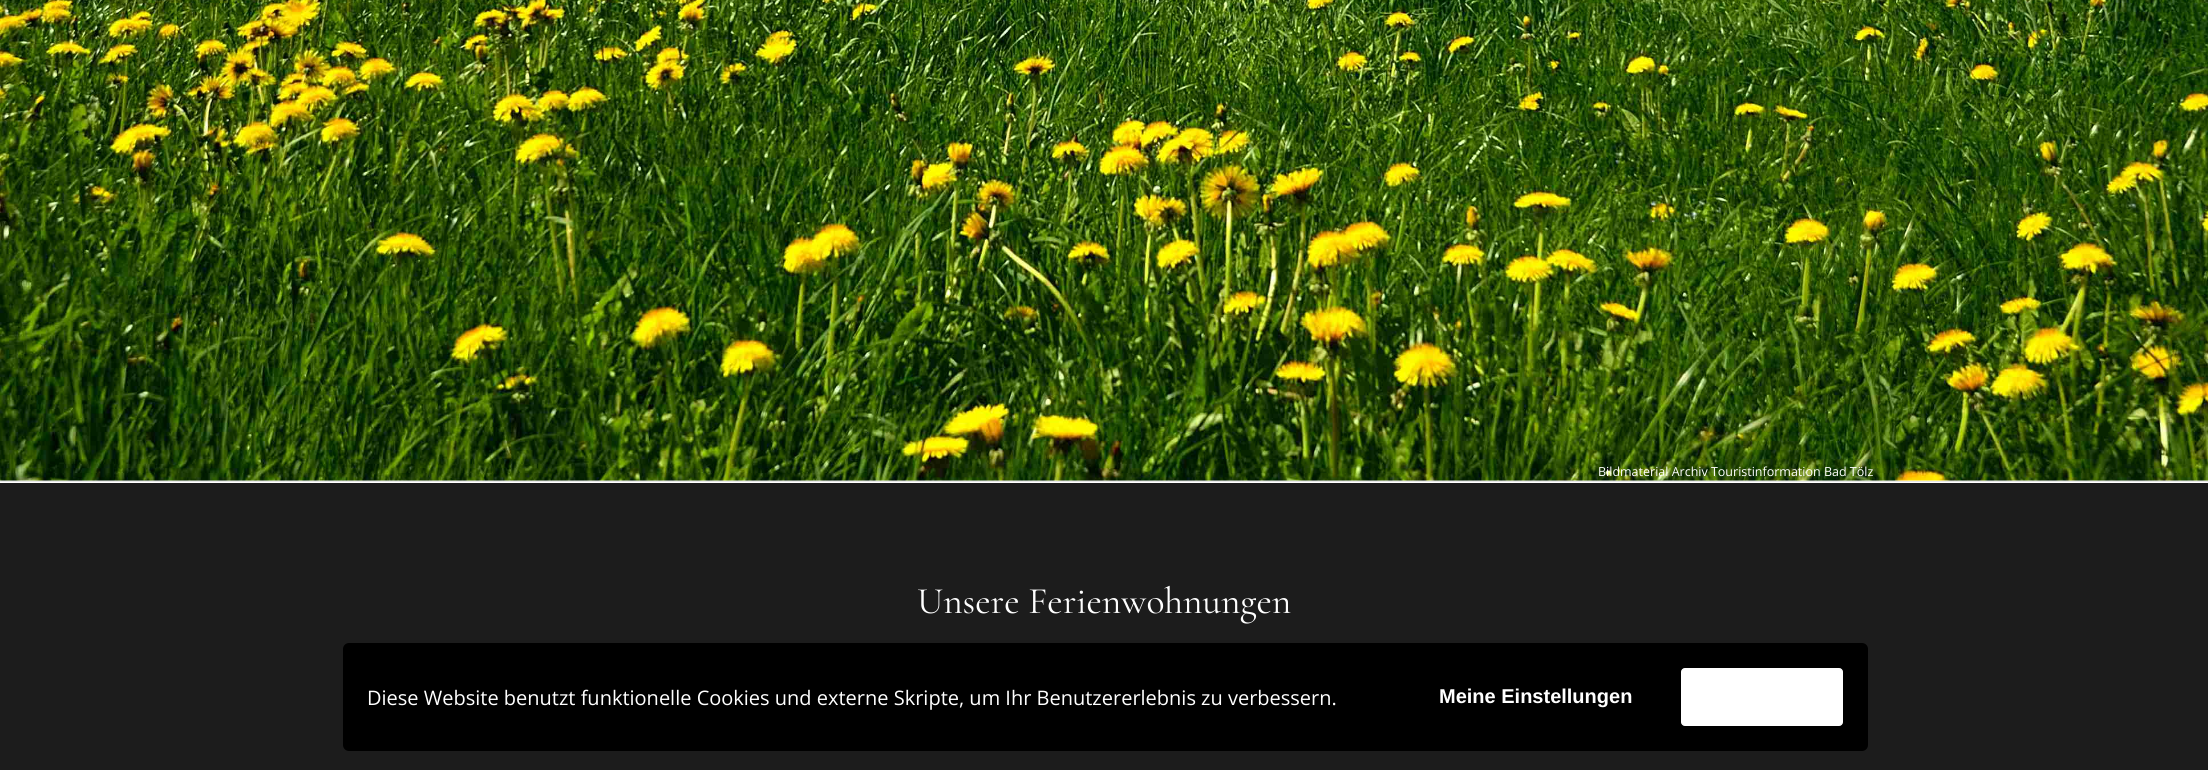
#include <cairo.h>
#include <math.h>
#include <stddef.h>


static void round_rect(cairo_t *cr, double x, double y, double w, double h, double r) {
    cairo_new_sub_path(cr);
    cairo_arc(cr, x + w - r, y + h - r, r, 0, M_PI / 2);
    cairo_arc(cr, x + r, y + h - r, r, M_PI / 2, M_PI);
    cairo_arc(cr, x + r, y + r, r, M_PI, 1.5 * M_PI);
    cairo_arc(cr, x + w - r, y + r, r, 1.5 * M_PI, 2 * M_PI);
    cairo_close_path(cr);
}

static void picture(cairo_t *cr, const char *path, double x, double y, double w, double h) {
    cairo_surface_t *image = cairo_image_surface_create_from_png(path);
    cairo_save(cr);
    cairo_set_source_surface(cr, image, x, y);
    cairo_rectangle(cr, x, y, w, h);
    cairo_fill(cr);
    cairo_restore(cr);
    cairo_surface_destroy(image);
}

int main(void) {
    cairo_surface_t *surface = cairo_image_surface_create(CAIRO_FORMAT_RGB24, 2208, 770);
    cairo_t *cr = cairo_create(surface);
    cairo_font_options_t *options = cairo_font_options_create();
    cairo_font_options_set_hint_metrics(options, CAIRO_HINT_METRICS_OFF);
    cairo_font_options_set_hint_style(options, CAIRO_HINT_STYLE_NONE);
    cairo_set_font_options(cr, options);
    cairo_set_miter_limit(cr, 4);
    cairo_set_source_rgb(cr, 1, 1, 1);
    cairo_paint(cr);
    cairo_set_source_rgb(cr, 0.91, 0.91, 0.91);
    cairo_rectangle(cr, 0, 481, 2208, 1);
    cairo_fill(cr);
    picture(cr, "img1.png", 0, 0, 2208, 481);
    cairo_select_font_face(cr, "Open Sans", CAIRO_FONT_SLANT_NORMAL, CAIRO_FONT_WEIGHT_NORMAL);
    cairo_set_font_size(cr, 12.5);
    cairo_set_source_rgb(cr, 1, 1, 1);
    cairo_move_to(cr, 1598, 476);
    cairo_show_text(cr, "Bildmaterial Archiv Touristinformation Bad Tölz");
    cairo_set_source_rgb(cr, 0.11, 0.11, 0.11);
    cairo_rectangle(cr, 0, 483, 2208, 287);
    cairo_fill(cr);
    cairo_select_font_face(cr, "Cormorant", CAIRO_FONT_SLANT_NORMAL, CAIRO_FONT_WEIGHT_NORMAL);
    cairo_set_font_size(cr, 37.5);
    cairo_set_source_rgb(cr, 1, 1, 1);
    cairo_move_to(cr, 917, 613);
    cairo_show_text(cr, "Unsere Ferienwohnungen");
    cairo_set_source_rgb(cr, 0, 0, 0);
    round_rect(cr, 343, 643, 1525, 108, 6);
    cairo_fill(cr);
    cairo_select_font_face(cr, "Open Sans", CAIRO_FONT_SLANT_NORMAL, CAIRO_FONT_WEIGHT_NORMAL);
    cairo_set_font_size(cr, 20);
    cairo_set_source_rgb(cr, 1, 1, 1);
    cairo_move_to(cr, 367, 705);
    cairo_show_text(cr, "Diese Website benutzt funktionelle Cookies und externe Skripte, um Ihr Benutzererlebnis zu verbessern.");
    cairo_select_font_face(cr, "Liberation Sans", CAIRO_FONT_SLANT_NORMAL, CAIRO_FONT_WEIGHT_BOLD);
    cairo_move_to(cr, 1439, 703);
    cairo_show_text(cr, "Meine Einstellungen");
    round_rect(cr, 1681.5, 668.5, 161, 57, 3.5);
    cairo_fill_preserve(cr);
    cairo_set_line_width(cr, 1);
    cairo_stroke(cr);
    cairo_surface_write_to_png(surface, "page.png");
    cairo_font_options_destroy(options);
    cairo_destroy(cr);
    cairo_surface_destroy(surface);
    return 0;
}
